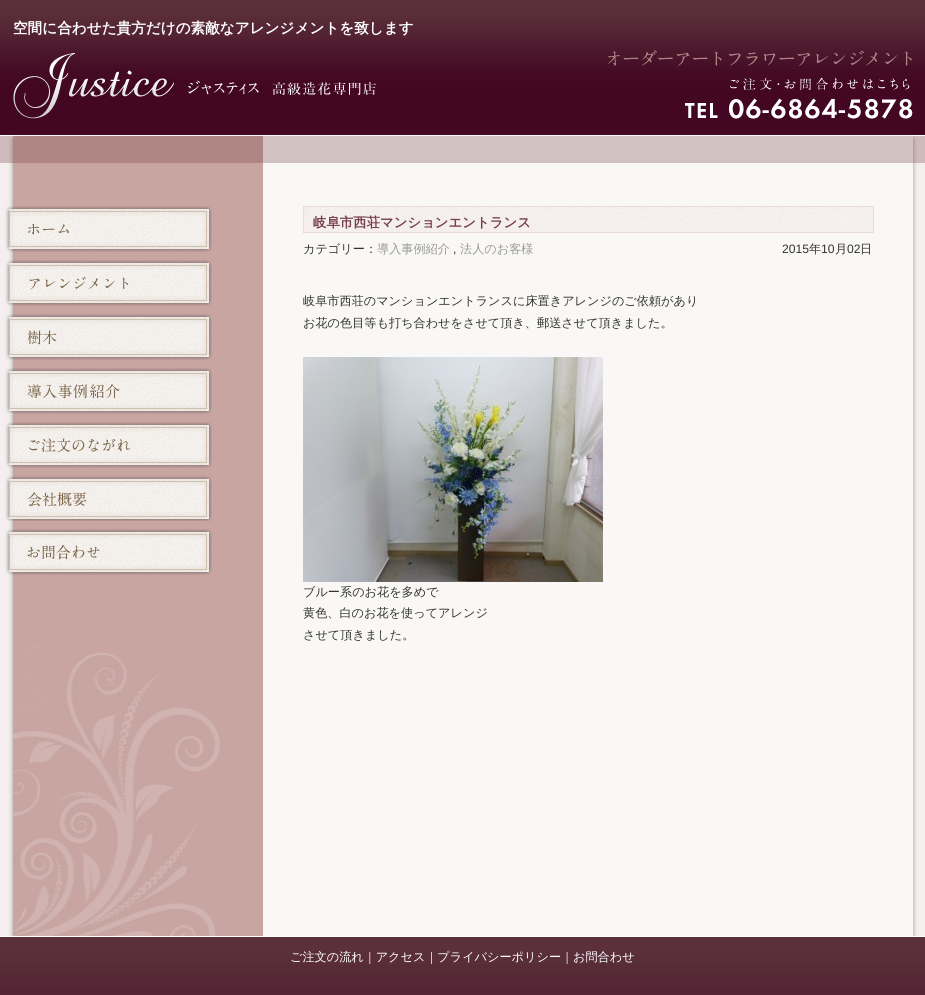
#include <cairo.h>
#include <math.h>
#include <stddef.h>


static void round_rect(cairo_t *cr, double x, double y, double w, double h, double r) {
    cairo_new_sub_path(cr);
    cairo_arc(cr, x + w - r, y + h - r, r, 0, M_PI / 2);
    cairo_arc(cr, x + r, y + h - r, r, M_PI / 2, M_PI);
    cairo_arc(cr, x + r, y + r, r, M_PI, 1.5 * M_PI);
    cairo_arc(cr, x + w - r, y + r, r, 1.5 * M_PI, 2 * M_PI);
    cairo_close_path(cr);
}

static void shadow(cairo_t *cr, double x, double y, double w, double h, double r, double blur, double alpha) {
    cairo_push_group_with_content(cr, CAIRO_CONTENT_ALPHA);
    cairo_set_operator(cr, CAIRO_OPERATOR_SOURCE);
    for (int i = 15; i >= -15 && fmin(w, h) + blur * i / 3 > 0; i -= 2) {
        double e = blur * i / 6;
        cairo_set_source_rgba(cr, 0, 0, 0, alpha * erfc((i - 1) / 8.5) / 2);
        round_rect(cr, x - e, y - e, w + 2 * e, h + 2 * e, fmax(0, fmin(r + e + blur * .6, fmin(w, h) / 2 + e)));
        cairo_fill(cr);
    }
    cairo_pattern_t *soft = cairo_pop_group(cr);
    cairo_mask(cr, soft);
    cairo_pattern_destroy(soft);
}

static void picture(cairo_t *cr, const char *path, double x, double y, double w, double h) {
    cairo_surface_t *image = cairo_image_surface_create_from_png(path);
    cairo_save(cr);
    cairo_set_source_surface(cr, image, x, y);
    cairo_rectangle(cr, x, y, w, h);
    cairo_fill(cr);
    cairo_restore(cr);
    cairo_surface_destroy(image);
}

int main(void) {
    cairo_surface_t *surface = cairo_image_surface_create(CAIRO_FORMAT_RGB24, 925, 995);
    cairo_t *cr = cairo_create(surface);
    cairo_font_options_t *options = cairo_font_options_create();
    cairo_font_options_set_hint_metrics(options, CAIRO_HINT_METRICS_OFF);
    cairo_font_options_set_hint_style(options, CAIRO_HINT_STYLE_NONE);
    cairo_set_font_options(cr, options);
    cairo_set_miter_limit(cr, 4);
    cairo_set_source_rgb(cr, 0.961, 0.937, 0.937);
    cairo_paint(cr);
    picture(cr, "img1.png", 0, 0, 925, 135);
    cairo_set_source_rgb(cr, 1, 1, 1);
    cairo_rectangle(cr, 0, 135, 925, 1);
    cairo_fill(cr);
    cairo_select_font_face(cr, "WenQuanYi Zen Hei", CAIRO_FONT_SLANT_NORMAL, CAIRO_FONT_WEIGHT_BOLD);
    cairo_set_font_size(cr, 14.6);
    cairo_move_to(cr, 13, 33);
    cairo_show_text(cr, "空間に合わせた貴方だけの素敵なアレンジメントを致します");
    picture(cr, "img2.png", 13, 53, 363, 66);
    picture(cr, "img3.png", 607, 50, 305, 16);
    picture(cr, "img4.png", 685, 77, 228, 42);
    cairo_set_source_rgb(cr, 0.6, 0.6, 0.6);
    shadow(cr, 13, 139, 900, 800, 0, 2.5, 1);
    cairo_set_source_rgb(cr, 0.784, 0.647, 0.631);
    cairo_rectangle(cr, 13, 136, 250, 800);
    cairo_fill(cr);
    cairo_set_source_rgb(cr, 0.973, 0.969, 0.961);
    cairo_rectangle(cr, 263, 136, 650, 800);
    cairo_fill(cr);
    cairo_set_source_rgba(cr, 0.447, 0.231, 0.243, 0.29);
    cairo_rectangle(cr, 0, 136, 925, 27);
    cairo_fill(cr);
    picture(cr, "img5.png", 13, 646, 207, 290);
    picture(cr, "img6.png", 5, 206, 207, 46);
    picture(cr, "img7.png", 5, 260, 207, 46);
    picture(cr, "img8.png", 5, 314, 207, 46);
    picture(cr, "img9.png", 5, 368, 207, 46);
    picture(cr, "img10.png", 5, 422, 207, 46);
    picture(cr, "img11.png", 5, 475, 207, 46);
    picture(cr, "img12.png", 5, 529, 207, 46);
    picture(cr, "img13.png", 303, 206, 571, 27);
    cairo_set_font_size(cr, 13.4);
    cairo_set_source_rgb(cr, 0.463, 0.247, 0.298);
    cairo_move_to(cr, 313, 227);
    cairo_show_text(cr, "岐阜市西荘マンションエントランス");
    cairo_select_font_face(cr, "WenQuanYi Zen Hei Medium", CAIRO_FONT_SLANT_NORMAL, CAIRO_FONT_WEIGHT_NORMAL);
    cairo_set_font_size(cr, 12.15);
    cairo_set_source_rgb(cr, 0.2, 0.2, 0.2);
    cairo_move_to(cr, 303, 253);
    cairo_show_text(cr, "カテゴリー：");
    cairo_set_source_rgb(cr, 0.6, 0.6, 0.6);
    cairo_move_to(cr, 377, 253);
    cairo_show_text(cr, "導入事例紹介");
    cairo_select_font_face(cr, "Liberation Sans", CAIRO_FONT_SLANT_NORMAL, CAIRO_FONT_WEIGHT_NORMAL);
    cairo_set_source_rgb(cr, 0.2, 0.2, 0.2);
    cairo_move_to(cr, 453, 253);
    cairo_show_text(cr, ",");
    cairo_select_font_face(cr, "WenQuanYi Zen Hei Medium", CAIRO_FONT_SLANT_NORMAL, CAIRO_FONT_WEIGHT_NORMAL);
    cairo_set_source_rgb(cr, 0.6, 0.6, 0.6);
    cairo_move_to(cr, 460, 253);
    cairo_show_text(cr, "法人のお客様");
    cairo_select_font_face(cr, "Liberation Sans", CAIRO_FONT_SLANT_NORMAL, CAIRO_FONT_WEIGHT_NORMAL);
    cairo_set_source_rgb(cr, 0.2, 0.2, 0.2);
    cairo_move_to(cr, 782, 253);
    cairo_show_text(cr, "2015");
    cairo_select_font_face(cr, "WenQuanYi Zen Hei Medium", CAIRO_FONT_SLANT_NORMAL, CAIRO_FONT_WEIGHT_NORMAL);
    cairo_move_to(cr, 809, 253);
    cairo_show_text(cr, "年");
    cairo_select_font_face(cr, "Liberation Sans", CAIRO_FONT_SLANT_NORMAL, CAIRO_FONT_WEIGHT_NORMAL);
    cairo_move_to(cr, 821, 253);
    cairo_show_text(cr, "10");
    cairo_select_font_face(cr, "WenQuanYi Zen Hei Medium", CAIRO_FONT_SLANT_NORMAL, CAIRO_FONT_WEIGHT_NORMAL);
    cairo_move_to(cr, 835, 253);
    cairo_show_text(cr, "月");
    cairo_select_font_face(cr, "Liberation Sans", CAIRO_FONT_SLANT_NORMAL, CAIRO_FONT_WEIGHT_NORMAL);
    cairo_move_to(cr, 847, 253);
    cairo_show_text(cr, "02");
    cairo_select_font_face(cr, "WenQuanYi Zen Hei Medium", CAIRO_FONT_SLANT_NORMAL, CAIRO_FONT_WEIGHT_NORMAL);
    cairo_move_to(cr, 860, 253);
    cairo_show_text(cr, "日");
    cairo_move_to(cr, 303, 305);
    cairo_show_text(cr, "岐阜市西荘のマンションエントランスに床置きアレンジのご依頼があり");
    cairo_move_to(cr, 303, 327);
    cairo_show_text(cr, "お花の色目等も打ち合わせをさせて頂き、郵送させて頂きました。");
    picture(cr, "img14.png", 303, 357, 300, 225);
    cairo_move_to(cr, 303, 596);
    cairo_show_text(cr, "ブルー系のお花を多めで");
    cairo_move_to(cr, 303, 617);
    cairo_show_text(cr, "黄色、白のお花を使ってアレンジ");
    cairo_move_to(cr, 303, 639);
    cairo_show_text(cr, "させて頂きました。");
    picture(cr, "img15.png", 0, 937, 925, 58);
    cairo_set_source_rgb(cr, 1, 1, 1);
    cairo_rectangle(cr, 0, 936, 925, 1);
    cairo_fill(cr);
    cairo_move_to(cr, 290, 961);
    cairo_show_text(cr, "ご注文の流れ｜アクセス｜プライバシーポリシー｜お問合わせ");
    cairo_surface_write_to_png(surface, "page.png");
    cairo_font_options_destroy(options);
    cairo_destroy(cr);
    cairo_surface_destroy(surface);
    return 0;
}
